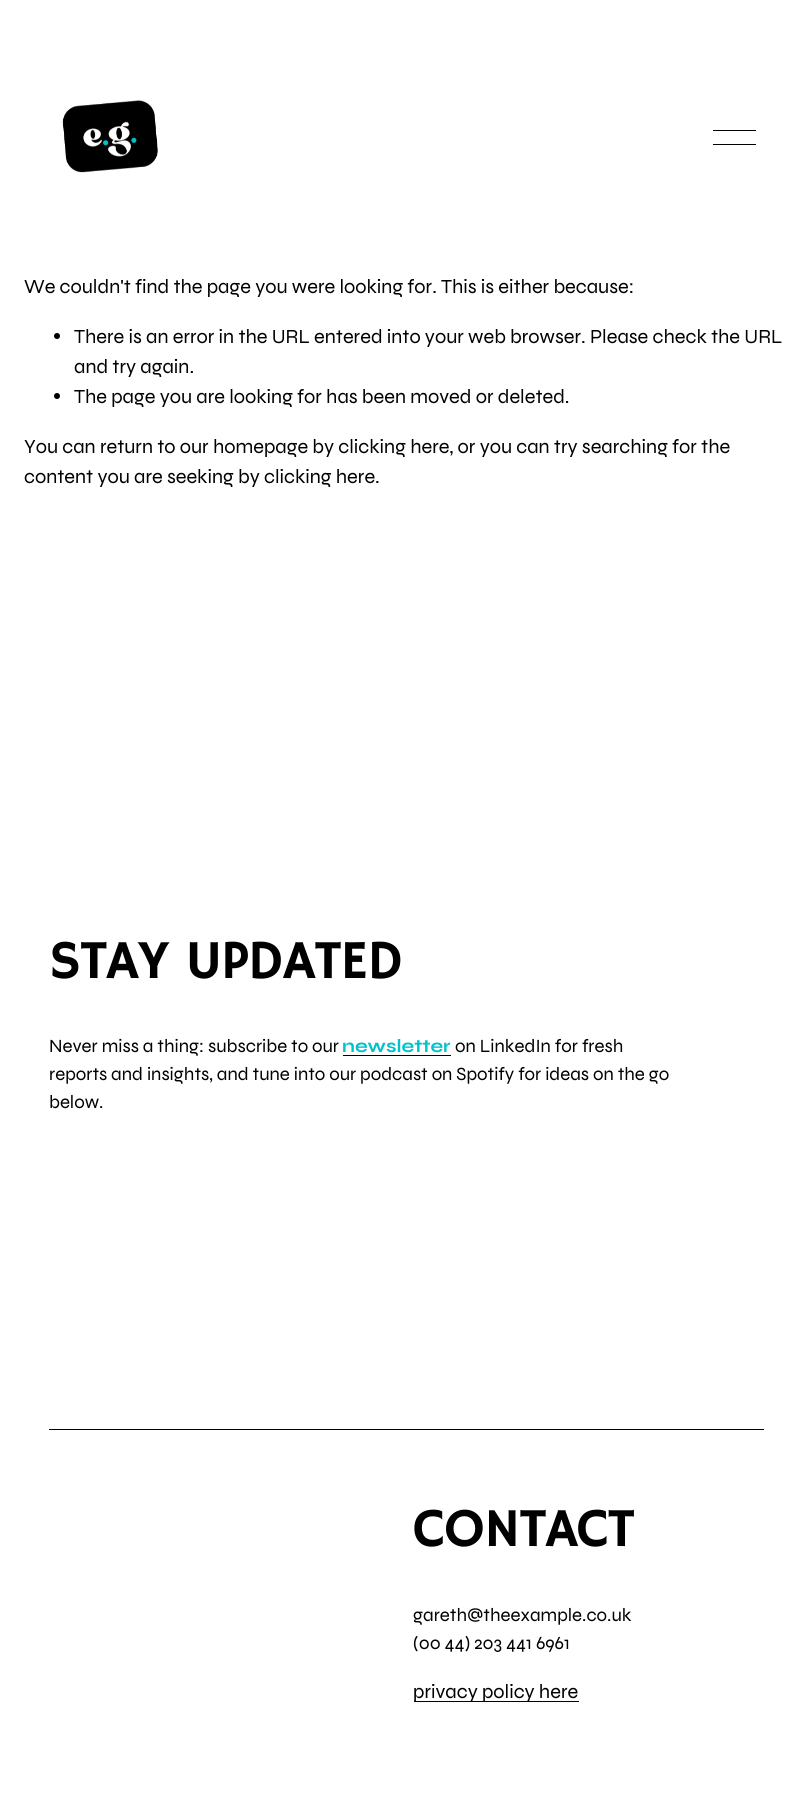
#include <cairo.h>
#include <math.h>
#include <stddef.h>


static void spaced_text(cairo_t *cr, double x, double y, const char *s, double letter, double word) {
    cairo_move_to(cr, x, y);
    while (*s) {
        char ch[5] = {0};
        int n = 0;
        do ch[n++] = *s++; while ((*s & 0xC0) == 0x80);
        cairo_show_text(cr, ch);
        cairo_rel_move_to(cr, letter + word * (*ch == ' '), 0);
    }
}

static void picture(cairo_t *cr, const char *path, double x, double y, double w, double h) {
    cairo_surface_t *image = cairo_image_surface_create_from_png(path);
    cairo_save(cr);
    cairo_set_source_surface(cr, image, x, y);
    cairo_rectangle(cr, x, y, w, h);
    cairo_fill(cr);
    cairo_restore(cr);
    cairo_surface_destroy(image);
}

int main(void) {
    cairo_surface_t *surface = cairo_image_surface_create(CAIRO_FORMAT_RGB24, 812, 1810);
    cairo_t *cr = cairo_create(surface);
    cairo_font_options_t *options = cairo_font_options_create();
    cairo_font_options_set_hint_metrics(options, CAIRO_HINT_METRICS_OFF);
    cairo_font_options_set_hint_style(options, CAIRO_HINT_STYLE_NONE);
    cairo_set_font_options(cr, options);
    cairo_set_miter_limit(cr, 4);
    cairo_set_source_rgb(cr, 1, 1, 1);
    cairo_paint(cr);
    picture(cr, "img1.png", 62, 100, 96, 73);
    cairo_set_source_rgb(cr, 0, 0, 0);
    cairo_rectangle(cr, 713, 130, 43, 1);
    cairo_fill(cr);
    cairo_rectangle(cr, 713, 144, 43, 1);
    cairo_fill(cr);
    cairo_select_font_face(cr, "Syne", CAIRO_FONT_SLANT_NORMAL, CAIRO_FONT_WEIGHT_NORMAL);
    cairo_set_font_size(cr, 20);
    cairo_move_to(cr, 24, 293);
    cairo_show_text(cr, "We couldn't find the page you were looking for. This is either because:");
    cairo_new_path(cr);
    cairo_arc(cr, 57, 336, 3, 0, 2 * M_PI);
    cairo_fill(cr);
    cairo_move_to(cr, 74, 343);
    cairo_show_text(cr, "There is an error in the URL entered into your web browser. Please check the URL");
    cairo_move_to(cr, 74, 373);
    cairo_show_text(cr, "and try again.");
    cairo_new_path(cr);
    cairo_arc(cr, 57, 396, 3, 0, 2 * M_PI);
    cairo_fill(cr);
    cairo_move_to(cr, 74, 403);
    cairo_show_text(cr, "The page you are looking for has been moved or deleted.");
    cairo_move_to(cr, 24, 453);
    cairo_show_text(cr, "You can return to our homepage by clicking here, or you can try searching for the");
    cairo_move_to(cr, 24, 483);
    cairo_show_text(cr, "content you are seeking by clicking here.");
    cairo_select_font_face(cr, "Hammersmith One", CAIRO_FONT_SLANT_NORMAL, CAIRO_FONT_WEIGHT_NORMAL);
    cairo_set_font_size(cr, 55);
    spaced_text(cr, 49, 978, "STAY UPDATED", -1.1, 0);
    cairo_select_font_face(cr, "Syne", CAIRO_FONT_SLANT_NORMAL, CAIRO_FONT_WEIGHT_NORMAL);
    cairo_set_font_size(cr, 18.65);
    cairo_move_to(cr, 49, 1052);
    cairo_show_text(cr, "Never miss a thing: subscribe to our");
    cairo_select_font_face(cr, "Syne", CAIRO_FONT_SLANT_NORMAL, CAIRO_FONT_WEIGHT_BOLD);
    cairo_set_source_rgb(cr, 0, 0.761, 0.796);
    cairo_move_to(cr, 342, 1052);
    cairo_show_text(cr, "newsletter");
    cairo_set_source_rgb(cr, 0, 0, 0);
    cairo_rectangle(cr, 343, 1055, 108, 1);
    cairo_fill(cr);
    cairo_select_font_face(cr, "Syne", CAIRO_FONT_SLANT_NORMAL, CAIRO_FONT_WEIGHT_NORMAL);
    cairo_move_to(cr, 455, 1052);
    cairo_show_text(cr, "on LinkedIn for fresh");
    cairo_move_to(cr, 49, 1080);
    cairo_show_text(cr, "reports and insights, and tune into our podcast on Spotify for ideas on the go");
    cairo_move_to(cr, 49, 1108);
    cairo_show_text(cr, "below.");
    cairo_rectangle(cr, 49, 1429, 715, 1);
    cairo_fill(cr);
    cairo_select_font_face(cr, "Hammersmith One", CAIRO_FONT_SLANT_NORMAL, CAIRO_FONT_WEIGHT_NORMAL);
    cairo_set_font_size(cr, 55);
    spaced_text(cr, 413, 1546, "CONTACT", -1.1, 0);
    cairo_select_font_face(cr, "Syne", CAIRO_FONT_SLANT_NORMAL, CAIRO_FONT_WEIGHT_NORMAL);
    cairo_set_font_size(cr, 18.65);
    cairo_move_to(cr, 413, 1621);
    cairo_show_text(cr, "gareth@theexample.co.uk");
    cairo_move_to(cr, 413, 1649);
    cairo_show_text(cr, "(00 44) 203 441 6961");
    cairo_rectangle(cr, 414, 1701, 165, 1);
    cairo_fill(cr);
    cairo_set_font_size(cr, 20);
    cairo_move_to(cr, 413, 1698);
    cairo_show_text(cr, "privacy policy here");
    cairo_surface_write_to_png(surface, "page.png");
    cairo_font_options_destroy(options);
    cairo_destroy(cr);
    cairo_surface_destroy(surface);
    return 0;
}
